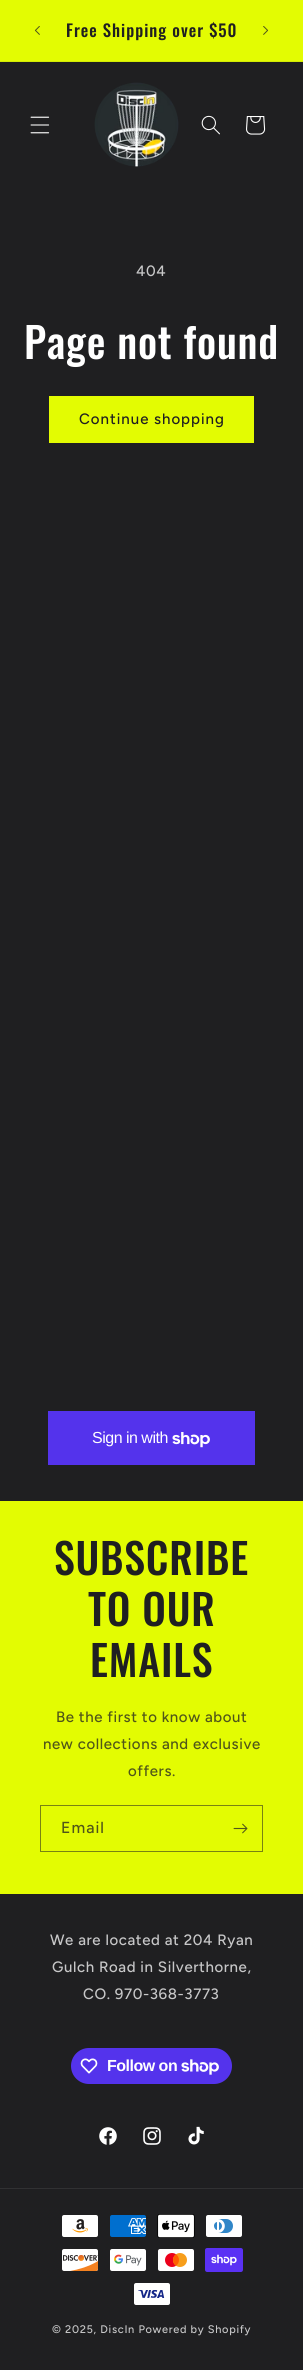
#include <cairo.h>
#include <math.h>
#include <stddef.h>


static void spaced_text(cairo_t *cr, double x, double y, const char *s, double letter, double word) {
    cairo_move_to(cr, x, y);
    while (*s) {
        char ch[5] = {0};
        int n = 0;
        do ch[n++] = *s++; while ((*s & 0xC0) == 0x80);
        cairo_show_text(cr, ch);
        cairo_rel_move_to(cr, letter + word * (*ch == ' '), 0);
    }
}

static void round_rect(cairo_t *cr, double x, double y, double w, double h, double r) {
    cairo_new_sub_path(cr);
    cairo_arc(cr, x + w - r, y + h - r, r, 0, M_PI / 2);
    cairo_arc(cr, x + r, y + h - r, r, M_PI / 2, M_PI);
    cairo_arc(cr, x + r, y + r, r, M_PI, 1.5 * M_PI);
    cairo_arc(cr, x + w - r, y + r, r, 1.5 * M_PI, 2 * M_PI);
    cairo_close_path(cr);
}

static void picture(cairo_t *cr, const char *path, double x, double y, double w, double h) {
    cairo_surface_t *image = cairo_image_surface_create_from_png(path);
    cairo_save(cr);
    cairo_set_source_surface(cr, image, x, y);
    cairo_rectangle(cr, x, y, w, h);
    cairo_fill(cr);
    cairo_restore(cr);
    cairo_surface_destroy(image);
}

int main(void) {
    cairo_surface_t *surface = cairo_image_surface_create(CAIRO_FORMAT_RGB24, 303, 2370);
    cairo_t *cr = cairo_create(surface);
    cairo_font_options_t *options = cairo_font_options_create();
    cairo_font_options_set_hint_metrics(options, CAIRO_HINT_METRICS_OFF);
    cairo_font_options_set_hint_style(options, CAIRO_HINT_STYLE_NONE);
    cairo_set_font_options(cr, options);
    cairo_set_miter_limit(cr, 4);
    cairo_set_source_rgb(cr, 0.122, 0.122, 0.129);
    cairo_paint(cr);
    cairo_set_source_rgb(cr, 0.89, 0.988, 0.008);
    cairo_rectangle(cr, 0, 0, 303, 61);
    cairo_fill(cr);
    cairo_set_source_rgb(cr, 0.827, 0.918, 0.016);
    cairo_rectangle(cr, 0, 61, 303, 1);
    cairo_fill(cr);
    picture(cr, "img1.png", 34, 26, 6, 9);
    cairo_select_font_face(cr, "Oswald Medium", CAIRO_FONT_SLANT_NORMAL, CAIRO_FONT_WEIGHT_NORMAL);
    cairo_set_font_size(cr, 16.75);
    cairo_set_source_rgb(cr, 0.122, 0.122, 0.129);
    spaced_text(cr, 66, 37, "Free Shipping over $50", 1, 0);
    picture(cr, "img2.png", 263, 26, 6, 9);
    picture(cr, "img3.png", 30, 116, 20, 18);
    picture(cr, "img4.png", 94, 82, 85, 85);
    picture(cr, "img5.png", 201, 115, 19, 20);
    picture(cr, "img6.png", 246, 116, 20, 19);
    cairo_select_font_face(cr, "Figtree Medium", CAIRO_FONT_SLANT_NORMAL, CAIRO_FONT_WEIGHT_NORMAL);
    cairo_set_font_size(cr, 15);
    cairo_set_source_rgb(cr, 0.78, 0.78, 0.784);
    spaced_text(cr, 136, 276, "404", 0.6, 0);
    cairo_select_font_face(cr, "Oswald Medium", CAIRO_FONT_SLANT_NORMAL, CAIRO_FONT_WEIGHT_NORMAL);
    cairo_set_font_size(cr, 42);
    cairo_set_source_rgb(cr, 1, 1, 1);
    spaced_text(cr, 24, 359, "Page not found", 0.8, 0);
    cairo_set_source_rgb(cr, 0.89, 0.988, 0.008);
    cairo_rectangle(cr, 49, 396, 205, 47);
    cairo_fill(cr);
    cairo_select_font_face(cr, "Figtree Medium", CAIRO_FONT_SLANT_NORMAL, CAIRO_FONT_WEIGHT_NORMAL);
    cairo_set_font_size(cr, 15);
    cairo_set_source_rgb(cr, 0.122, 0.122, 0.129);
    spaced_text(cr, 79, 424, "Continue shopping", 1, 0);
    cairo_set_source_rgb(cr, 0.329, 0.2, 0.922);
    cairo_rectangle(cr, 48, 1411, 207, 54);
    cairo_fill(cr);
    cairo_select_font_face(cr, "Liberation Sans", CAIRO_FONT_SLANT_NORMAL, CAIRO_FONT_WEIGHT_NORMAL);
    cairo_set_font_size(cr, 16);
    cairo_set_source_rgb(cr, 1, 1, 1);
    spaced_text(cr, 92, 1443, "Sign in with", -0.5, 0);
    picture(cr, "img7.png", 172, 1432, 38, 16);
    cairo_set_source_rgb(cr, 0.89, 0.988, 0.008);
    cairo_rectangle(cr, 0, 1501, 303, 393);
    cairo_fill(cr);
    cairo_select_font_face(cr, "Oswald Medium", CAIRO_FONT_SLANT_NORMAL, CAIRO_FONT_WEIGHT_NORMAL);
    cairo_set_font_size(cr, 42);
    cairo_set_source_rgb(cr, 0.122, 0.122, 0.129);
    spaced_text(cr, 54, 1575, "SUBSCRIBE", 0.8, 0);
    spaced_text(cr, 88, 1626, "TO OUR", 0.8, 0);
    spaced_text(cr, 90, 1677, "EMAILS", 0.8, 0);
    cairo_select_font_face(cr, "Figtree Medium", CAIRO_FONT_SLANT_NORMAL, CAIRO_FONT_WEIGHT_NORMAL);
    cairo_set_font_size(cr, 15);
    cairo_set_source_rgb(cr, 0.314, 0.337, 0.098);
    spaced_text(cr, 56, 1722, "Be the first to know about", 0.6, 0);
    spaced_text(cr, 43, 1749, "new collections and exclusive", 0.6, 0);
    spaced_text(cr, 128, 1776, "offers.", 0.6, 0);
    cairo_rectangle(cr, 40.5, 1805.5, 222, 46);
    cairo_set_source_rgb(cr, 0.467, 0.51, 0.075);
    cairo_set_line_width(cr, 1);
    cairo_stroke(cr);
    cairo_set_font_size(cr, 16);
    cairo_set_source_rgb(cr, 0.314, 0.337, 0.098);
    spaced_text(cr, 61, 1833, "Email", 1, 0);
    picture(cr, "img8.png", 233, 1823, 15, 11);
    cairo_set_font_size(cr, 15);
    cairo_set_source_rgb(cr, 0.78, 0.78, 0.784);
    spaced_text(cr, 50, 1945, "We are located at 204 Ryan", 0.6, 0);
    spaced_text(cr, 52, 1972, "Gulch Road in Silverthorne,", 0.6, 0);
    spaced_text(cr, 83, 1999, "CO. 970-368-3773", 0.6, 0);
    cairo_set_source_rgb(cr, 0.329, 0.2, 0.922);
    round_rect(cr, 71, 2048, 161, 36, 18);
    cairo_fill(cr);
    picture(cr, "img9.png", 80, 2058, 18, 16);
    cairo_select_font_face(cr, "Liberation Sans", CAIRO_FONT_SLANT_NORMAL, CAIRO_FONT_WEIGHT_BOLD);
    cairo_set_font_size(cr, 16);
    cairo_set_source_rgb(cr, 1, 1, 1);
    spaced_text(cr, 107, 2071, "Follow on", -0.5, 0);
    picture(cr, "img10.png", 181, 2059, 38, 16);
    picture(cr, "img11.png", 99, 2127, 18, 18);
    picture(cr, "img12.png", 143, 2127, 18, 18);
    picture(cr, "img13.png", 188, 2126, 16, 19);
    cairo_set_source_rgb(cr, 0.192, 0.192, 0.2);
    cairo_rectangle(cr, 0, 2188, 303, 1);
    cairo_fill(cr);
    picture(cr, "img14.png", 62, 2215, 36, 22);
    picture(cr, "img15.png", 110, 2215, 36, 22);
    picture(cr, "img16.png", 157, 2214, 38, 24);
    picture(cr, "img17.png", 206, 2215, 36, 22);
    picture(cr, "img18.png", 62, 2249, 36, 22);
    picture(cr, "img19.png", 110, 2249, 36, 22);
    picture(cr, "img20.png", 158, 2249, 36, 22);
    picture(cr, "img21.png", 205, 2248, 38, 24);
    picture(cr, "img22.png", 134, 2283, 36, 22);
    cairo_select_font_face(cr, "Figtree Medium", CAIRO_FONT_SLANT_NORMAL, CAIRO_FONT_WEIGHT_NORMAL);
    cairo_set_font_size(cr, 11);
    cairo_set_source_rgb(cr, 0.78, 0.78, 0.784);
    spaced_text(cr, 52, 2333, "© 2025, DiscIn Powered by Shopify", 0.7, 0);
    cairo_surface_write_to_png(surface, "page.png");
    cairo_font_options_destroy(options);
    cairo_destroy(cr);
    cairo_surface_destroy(surface);
    return 0;
}
